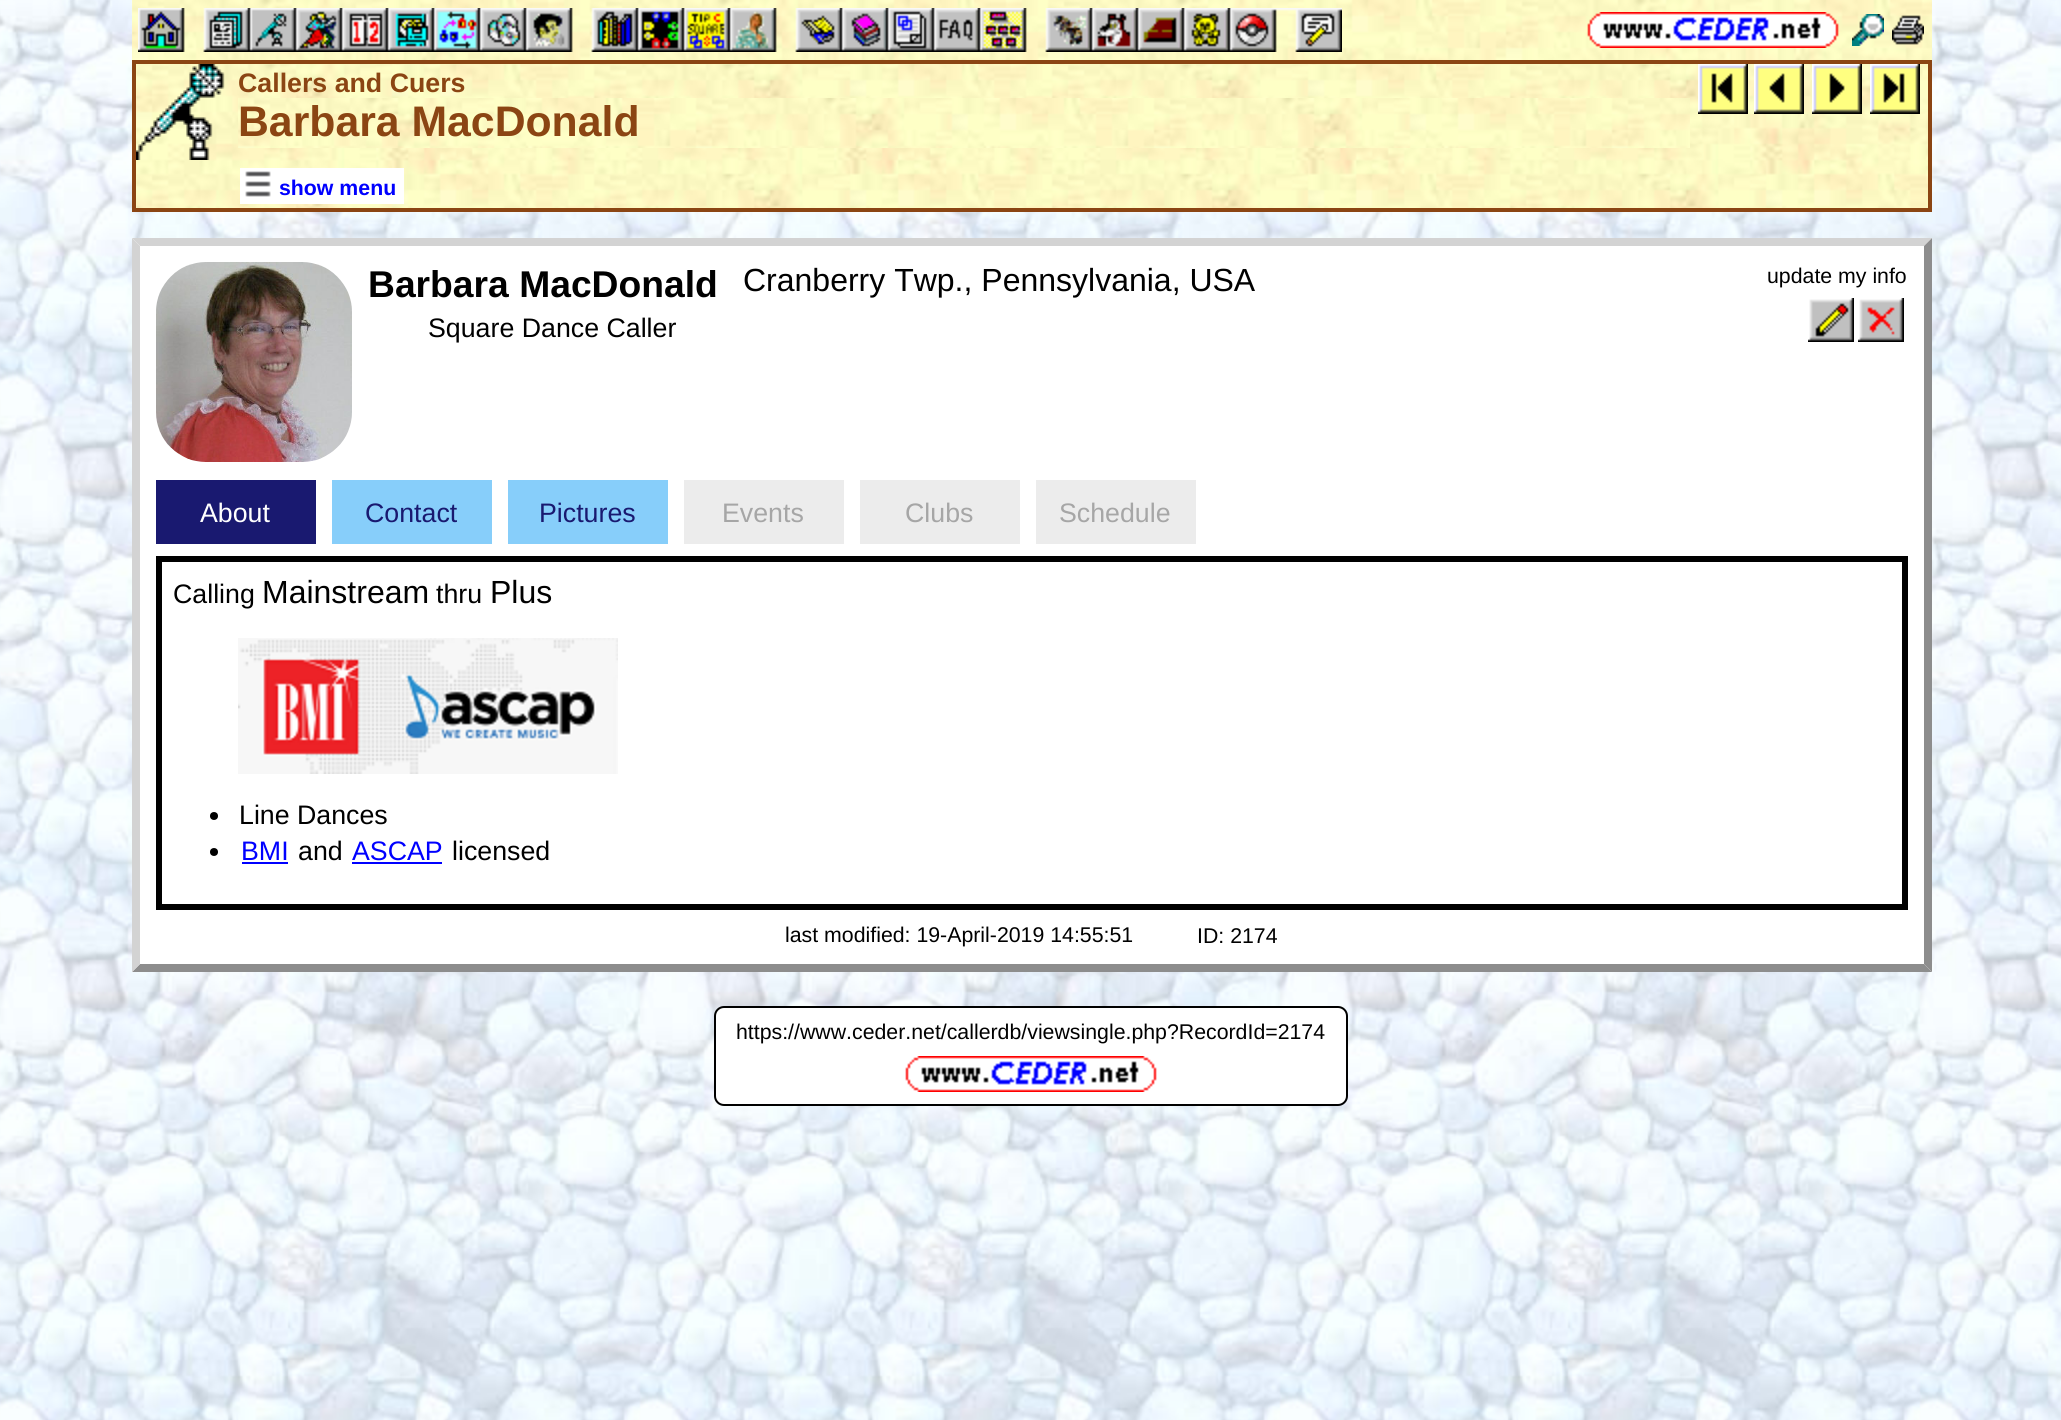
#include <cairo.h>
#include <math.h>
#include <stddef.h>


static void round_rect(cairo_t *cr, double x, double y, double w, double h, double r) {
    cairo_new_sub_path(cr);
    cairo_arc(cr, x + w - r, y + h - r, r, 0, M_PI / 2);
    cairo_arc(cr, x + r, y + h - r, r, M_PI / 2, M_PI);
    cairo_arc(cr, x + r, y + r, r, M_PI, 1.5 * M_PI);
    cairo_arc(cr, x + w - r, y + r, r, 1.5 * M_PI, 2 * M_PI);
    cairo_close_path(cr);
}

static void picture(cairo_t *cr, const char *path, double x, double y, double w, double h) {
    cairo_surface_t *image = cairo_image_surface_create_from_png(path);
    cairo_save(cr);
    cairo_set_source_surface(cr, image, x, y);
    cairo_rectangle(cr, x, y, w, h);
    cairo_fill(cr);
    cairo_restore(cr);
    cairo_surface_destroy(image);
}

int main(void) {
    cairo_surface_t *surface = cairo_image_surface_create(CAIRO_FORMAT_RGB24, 2061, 1420);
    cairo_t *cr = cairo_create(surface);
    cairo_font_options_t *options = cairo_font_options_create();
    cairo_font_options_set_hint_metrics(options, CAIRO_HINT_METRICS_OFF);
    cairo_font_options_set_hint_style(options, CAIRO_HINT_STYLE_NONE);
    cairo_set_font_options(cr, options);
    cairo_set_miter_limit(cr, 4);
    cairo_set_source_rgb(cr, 1, 1, 1);
    cairo_paint(cr);
    picture(cr, "img1.png", 0, 0, 2061, 1420);
    picture(cr, "img2.png", 132, 0, 1800, 60);
    picture(cr, "img3.png", 1587, 12, 252, 36);
    picture(cr, "img4.png", 1852, 14, 32, 32);
    picture(cr, "img5.png", 1892, 15, 32, 30);
    picture(cr, "img6.png", 138, 8, 1204, 44);
    picture(cr, "img7.png", 136, 64, 1792, 144);
    cairo_rectangle(cr, 134, 62, 1796, 148);
    cairo_set_source_rgb(cr, 0.545, 0.271, 0.075);
    cairo_set_line_width(cr, 4);
    cairo_stroke(cr);
    picture(cr, "img8.png", 136, 64, 89, 96);
    cairo_select_font_face(cr, "Liberation Sans", CAIRO_FONT_SLANT_NORMAL, CAIRO_FONT_WEIGHT_BOLD);
    cairo_set_font_size(cr, 26.75);
    cairo_move_to(cr, 238, 92);
    cairo_show_text(cr, "Callers and Cuers");
    picture(cr, "img9.png", 238, 98, 1452, 50);
    cairo_set_font_size(cr, 42.75);
    cairo_move_to(cr, 238, 136);
    cairo_show_text(cr, "Barbara MacDonald");
    picture(cr, "img10.png", 1748, 64, 180, 50);
    picture(cr, "img11.png", 1698, 64, 50, 50);
    picture(cr, "img12.png", 1754, 64, 50, 50);
    picture(cr, "img13.png", 1812, 64, 50, 50);
    picture(cr, "img14.png", 1870, 64, 50, 50);
    cairo_set_source_rgb(cr, 1, 1, 1);
    cairo_rectangle(cr, 240, 168, 164, 36);
    cairo_fill(cr);
    picture(cr, "img15.png", 245, 171, 26, 26);
    cairo_set_font_size(cr, 21.3);
    cairo_set_source_rgb(cr, 0, 0, 1);
    cairo_move_to(cr, 279, 195);
    cairo_show_text(cr, "show menu");
    cairo_set_source_rgb(cr, 1, 1, 1);
    cairo_rectangle(cr, 132, 238, 1800, 734);
    cairo_fill(cr);
    cairo_set_source_rgb(cr, 0.827, 0.827, 0.827);
    cairo_new_path(cr);
    cairo_move_to(cr, 132, 238);
    cairo_line_to(cr, 1932, 238);
    cairo_line_to(cr, 1924, 246);
    cairo_line_to(cr, 140, 246);
    cairo_close_path(cr);
    cairo_fill(cr);
    cairo_set_source_rgb(cr, 0.553, 0.553, 0.553);
    cairo_new_path(cr);
    cairo_move_to(cr, 1932, 238);
    cairo_line_to(cr, 1932, 972);
    cairo_line_to(cr, 1924, 964);
    cairo_line_to(cr, 1924, 246);
    cairo_close_path(cr);
    cairo_fill(cr);
    cairo_new_path(cr);
    cairo_move_to(cr, 1932, 972);
    cairo_line_to(cr, 132, 972);
    cairo_line_to(cr, 140, 964);
    cairo_line_to(cr, 1924, 964);
    cairo_close_path(cr);
    cairo_fill(cr);
    cairo_set_source_rgb(cr, 0.827, 0.827, 0.827);
    cairo_new_path(cr);
    cairo_move_to(cr, 132, 972);
    cairo_line_to(cr, 132, 238);
    cairo_line_to(cr, 140, 246);
    cairo_line_to(cr, 140, 964);
    cairo_close_path(cr);
    cairo_fill(cr);
    picture(cr, "img16.png", 156, 262, 196, 200);
    cairo_set_font_size(cr, 37.25);
    cairo_set_source_rgb(cr, 0, 0, 0);
    cairo_move_to(cr, 368, 297);
    cairo_show_text(cr, "Barbara MacDonald");
    cairo_select_font_face(cr, "Liberation Sans", CAIRO_FONT_SLANT_NORMAL, CAIRO_FONT_WEIGHT_NORMAL);
    cairo_set_font_size(cr, 32);
    cairo_move_to(cr, 743, 291);
    cairo_show_text(cr, "Cranberry Twp., Pennsylvania, USA");
    cairo_set_font_size(cr, 26.75);
    cairo_move_to(cr, 428, 337);
    cairo_show_text(cr, "Square Dance Caller");
    cairo_set_font_size(cr, 21.3);
    cairo_move_to(cr, 1767, 283);
    cairo_show_text(cr, "update my info");
    picture(cr, "img17.png", 1808, 298, 46, 44);
    picture(cr, "img18.png", 1858, 298, 46, 44);
    cairo_set_source_rgb(cr, 0.098, 0.098, 0.439);
    cairo_rectangle(cr, 156, 480, 160, 64);
    cairo_fill(cr);
    cairo_set_font_size(cr, 26.75);
    cairo_set_source_rgb(cr, 1, 1, 1);
    cairo_move_to(cr, 200, 522);
    cairo_show_text(cr, "About");
    cairo_set_source_rgb(cr, 0.529, 0.808, 0.98);
    cairo_rectangle(cr, 332, 480, 160, 64);
    cairo_fill(cr);
    cairo_set_source_rgb(cr, 0.098, 0.098, 0.439);
    cairo_move_to(cr, 365, 522);
    cairo_show_text(cr, "Contact");
    cairo_set_source_rgb(cr, 0.529, 0.808, 0.98);
    cairo_rectangle(cr, 508, 480, 160, 64);
    cairo_fill(cr);
    cairo_set_source_rgb(cr, 0.098, 0.098, 0.439);
    cairo_move_to(cr, 539, 522);
    cairo_show_text(cr, "Pictures");
    cairo_set_source_rgb(cr, 0.922, 0.922, 0.922);
    cairo_rectangle(cr, 684, 480, 160, 64);
    cairo_fill(cr);
    cairo_set_source_rgb(cr, 0.651, 0.651, 0.651);
    cairo_move_to(cr, 722, 522);
    cairo_show_text(cr, "Events");
    cairo_set_source_rgb(cr, 0.922, 0.922, 0.922);
    cairo_rectangle(cr, 860, 480, 160, 64);
    cairo_fill(cr);
    cairo_set_source_rgb(cr, 0.651, 0.651, 0.651);
    cairo_move_to(cr, 905, 522);
    cairo_show_text(cr, "Clubs");
    cairo_set_source_rgb(cr, 0.922, 0.922, 0.922);
    cairo_rectangle(cr, 1036, 480, 160, 64);
    cairo_fill(cr);
    cairo_set_source_rgb(cr, 0.651, 0.651, 0.651);
    cairo_move_to(cr, 1059, 522);
    cairo_show_text(cr, "Schedule");
    cairo_rectangle(cr, 159, 559, 1746, 348);
    cairo_set_source_rgb(cr, 0, 0, 0);
    cairo_set_line_width(cr, 6);
    cairo_stroke(cr);
    cairo_move_to(cr, 173, 603);
    cairo_show_text(cr, "Calling");
    cairo_set_font_size(cr, 32);
    cairo_move_to(cr, 262, 603);
    cairo_show_text(cr, "Mainstream");
    cairo_set_font_size(cr, 26.75);
    cairo_move_to(cr, 436, 603);
    cairo_show_text(cr, "thru");
    cairo_set_font_size(cr, 32);
    cairo_move_to(cr, 490, 603);
    cairo_show_text(cr, "Plus");
    picture(cr, "img19.png", 238, 638, 380, 136);
    cairo_arc(cr, 214, 816, 4, 0, 2 * M_PI);
    cairo_fill(cr);
    cairo_set_font_size(cr, 26.75);
    cairo_move_to(cr, 239, 824);
    cairo_show_text(cr, "Line Dances");
    cairo_new_path(cr);
    cairo_arc(cr, 214, 852, 4, 0, 2 * M_PI);
    cairo_fill(cr);
    cairo_set_source_rgb(cr, 0, 0, 1);
    cairo_move_to(cr, 241, 860);
    cairo_show_text(cr, "BMI");
    cairo_rectangle(cr, 242, 862, 46, 2);
    cairo_fill(cr);
    cairo_set_source_rgb(cr, 0, 0, 0);
    cairo_move_to(cr, 298, 860);
    cairo_show_text(cr, "and");
    cairo_set_source_rgb(cr, 0, 0, 1);
    cairo_move_to(cr, 352, 860);
    cairo_show_text(cr, "ASCAP");
    cairo_rectangle(cr, 352, 862, 90, 2);
    cairo_fill(cr);
    cairo_set_source_rgb(cr, 0, 0, 0);
    cairo_move_to(cr, 452, 860);
    cairo_show_text(cr, "licensed");
    cairo_set_font_size(cr, 21.3);
    cairo_move_to(cr, 785, 942);
    cairo_show_text(cr, "last modified: 19-April-2019 14:55:51");
    cairo_move_to(cr, 1197, 943);
    cairo_show_text(cr, "ID: 2174");
    cairo_set_source_rgb(cr, 1, 1, 1);
    round_rect(cr, 715, 1007, 632, 98, 9);
    cairo_fill_preserve(cr);
    cairo_set_source_rgb(cr, 0, 0, 0);
    cairo_set_line_width(cr, 2);
    cairo_stroke(cr);
    cairo_move_to(cr, 736, 1039);
    cairo_show_text(cr, "https://www.ceder.net/callerdb/viewsingle.php?RecordId=2174");
    picture(cr, "img20.png", 905, 1056, 252, 36);
    cairo_surface_write_to_png(surface, "page.png");
    cairo_font_options_destroy(options);
    cairo_destroy(cr);
    cairo_surface_destroy(surface);
    return 0;
}
